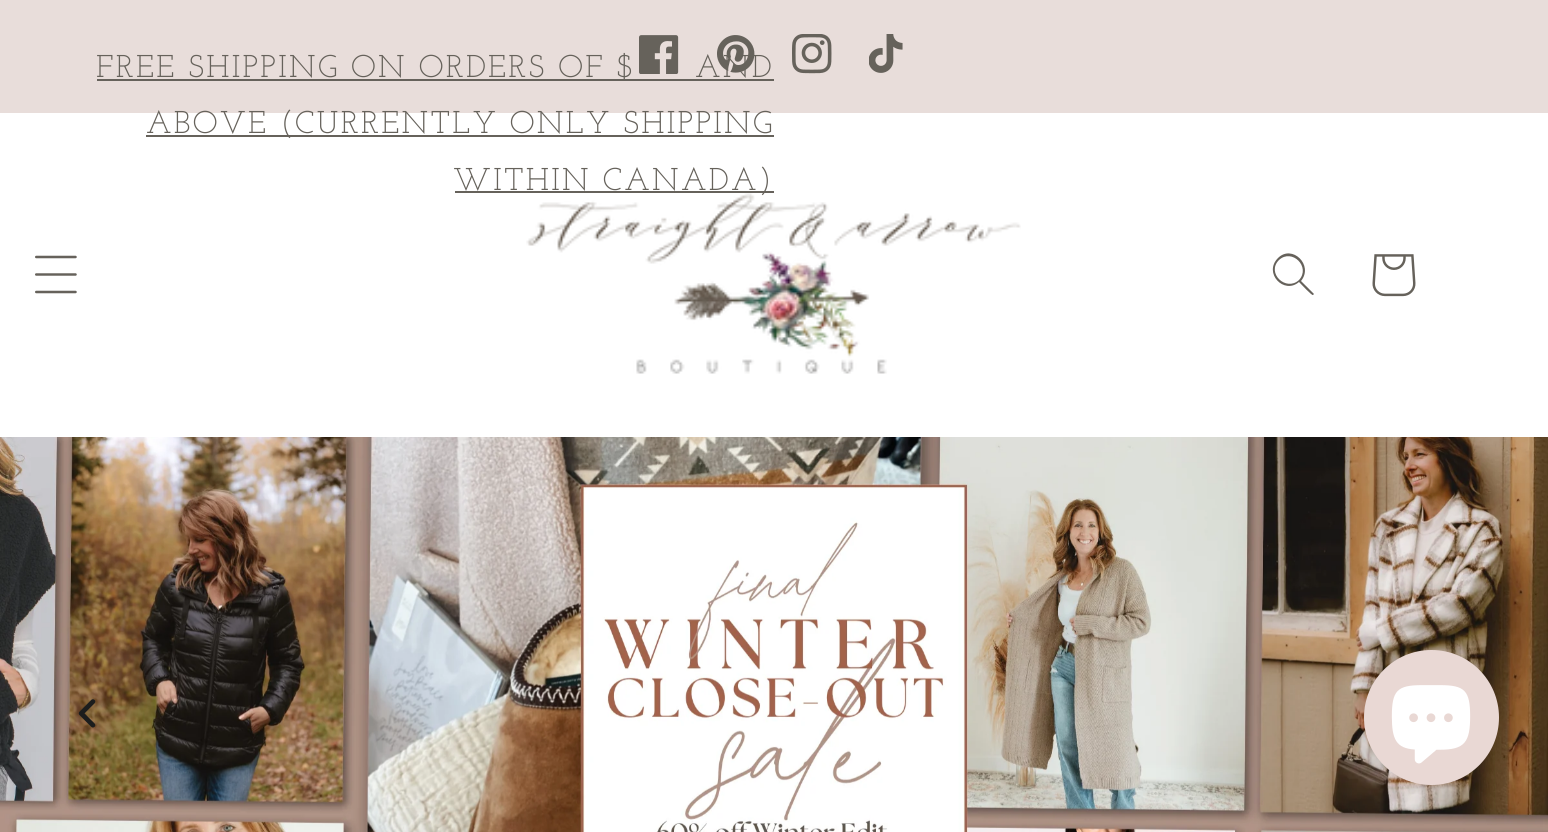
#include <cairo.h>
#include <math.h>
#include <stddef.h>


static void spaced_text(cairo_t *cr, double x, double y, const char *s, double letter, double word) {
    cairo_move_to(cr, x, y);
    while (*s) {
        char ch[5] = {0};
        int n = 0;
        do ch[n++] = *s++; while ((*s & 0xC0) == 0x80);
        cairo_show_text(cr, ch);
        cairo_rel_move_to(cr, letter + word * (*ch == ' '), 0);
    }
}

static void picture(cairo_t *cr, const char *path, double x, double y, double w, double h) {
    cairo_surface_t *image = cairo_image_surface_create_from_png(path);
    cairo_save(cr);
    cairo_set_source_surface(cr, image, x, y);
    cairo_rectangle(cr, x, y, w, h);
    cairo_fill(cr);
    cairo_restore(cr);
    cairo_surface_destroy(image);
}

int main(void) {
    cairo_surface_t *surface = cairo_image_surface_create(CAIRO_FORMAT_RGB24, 1548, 832);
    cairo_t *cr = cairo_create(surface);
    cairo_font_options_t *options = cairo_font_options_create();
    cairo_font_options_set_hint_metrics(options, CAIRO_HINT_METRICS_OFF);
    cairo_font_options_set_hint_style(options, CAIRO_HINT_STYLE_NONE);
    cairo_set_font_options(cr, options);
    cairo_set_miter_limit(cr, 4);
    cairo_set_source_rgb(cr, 1, 1, 1);
    cairo_paint(cr);
    cairo_set_source_rgb(cr, 0.91, 0.867, 0.855);
    cairo_rectangle(cr, 0, 0, 1548, 113);
    cairo_fill(cr);
    picture(cr, "img1.png", 639, 35, 40, 39);
    picture(cr, "img2.png", 717, 35, 38, 38);
    picture(cr, "img3.png", 792, 34, 40, 40);
    picture(cr, "img4.png", 869, 34, 34, 39);
    cairo_set_source_rgb(cr, 0.4, 0.384, 0.357);
    cairo_rectangle(cr, 97, 79, 677, 2);
    cairo_fill(cr);
    cairo_select_font_face(cr, "Josefin Slab", CAIRO_FONT_SLANT_NORMAL, CAIRO_FONT_WEIGHT_NORMAL);
    cairo_set_font_size(cr, 31.5);
    spaced_text(cr, 96, 77, "FREE SHIPPING ON ORDERS OF $", 2.25, 0);
    spaced_text(cr, 695, 77, "AND", 2.25, 0);
    cairo_rectangle(cr, 146, 135, 628, 2);
    cairo_fill(cr);
    spaced_text(cr, 146, 133, "ABOVE (CURRENTLY ONLY SHIPPING", 2.25, 0);
    cairo_rectangle(cr, 455, 191, 319, 2);
    cairo_fill(cr);
    picture(cr, "img6.png", 526, 193, 495, 181);
    spaced_text(cr, 453, 190, "WITHIN CANADA)", 2.25, 0);
    picture(cr, "img5.png", 35, 255, 42, 39);
    cairo_set_fill_rule(cr, CAIRO_FILL_RULE_EVEN_ODD);
    cairo_new_path(cr);
    cairo_move_to(cr, 1299, 280);
    cairo_curve_to(cr, 1286, 292, 1266, 273, 1279, 260);
    cairo_curve_to(cr, 1292, 248, 1311, 267, 1299, 280);
    cairo_close_path(cr);
    cairo_move_to(cr, 1299, 282);
    cairo_curve_to(cr, 1284, 295, 1263, 273, 1278, 258);
    cairo_curve_to(cr, 1292, 244, 1314, 265, 1301, 281);
    cairo_line_to(cr, 1314, 294);
    cairo_line_to(cr, 1313, 295);
    cairo_curve_to(cr, 1312, 296, 1301, 284, 1299, 282);
    cairo_close_path(cr);
    cairo_fill(cr);
    picture(cr, "img7.png", 1372, 254, 44, 43);
    picture(cr, "img8.png", 0, 437, 1548, 395);
    picture(cr, "img9.png", 78, 699, 18, 29);
    cairo_set_source_rgb(cr, 0.914, 0.847, 0.831);
    cairo_arc(cr, 1431.5, 717.5, 67.5, 0, 2 * M_PI);
    cairo_fill(cr);
    picture(cr, "img10.png", 1391, 685, 80, 79);
    cairo_surface_write_to_png(surface, "page.png");
    cairo_font_options_destroy(options);
    cairo_destroy(cr);
    cairo_surface_destroy(surface);
    return 0;
}
